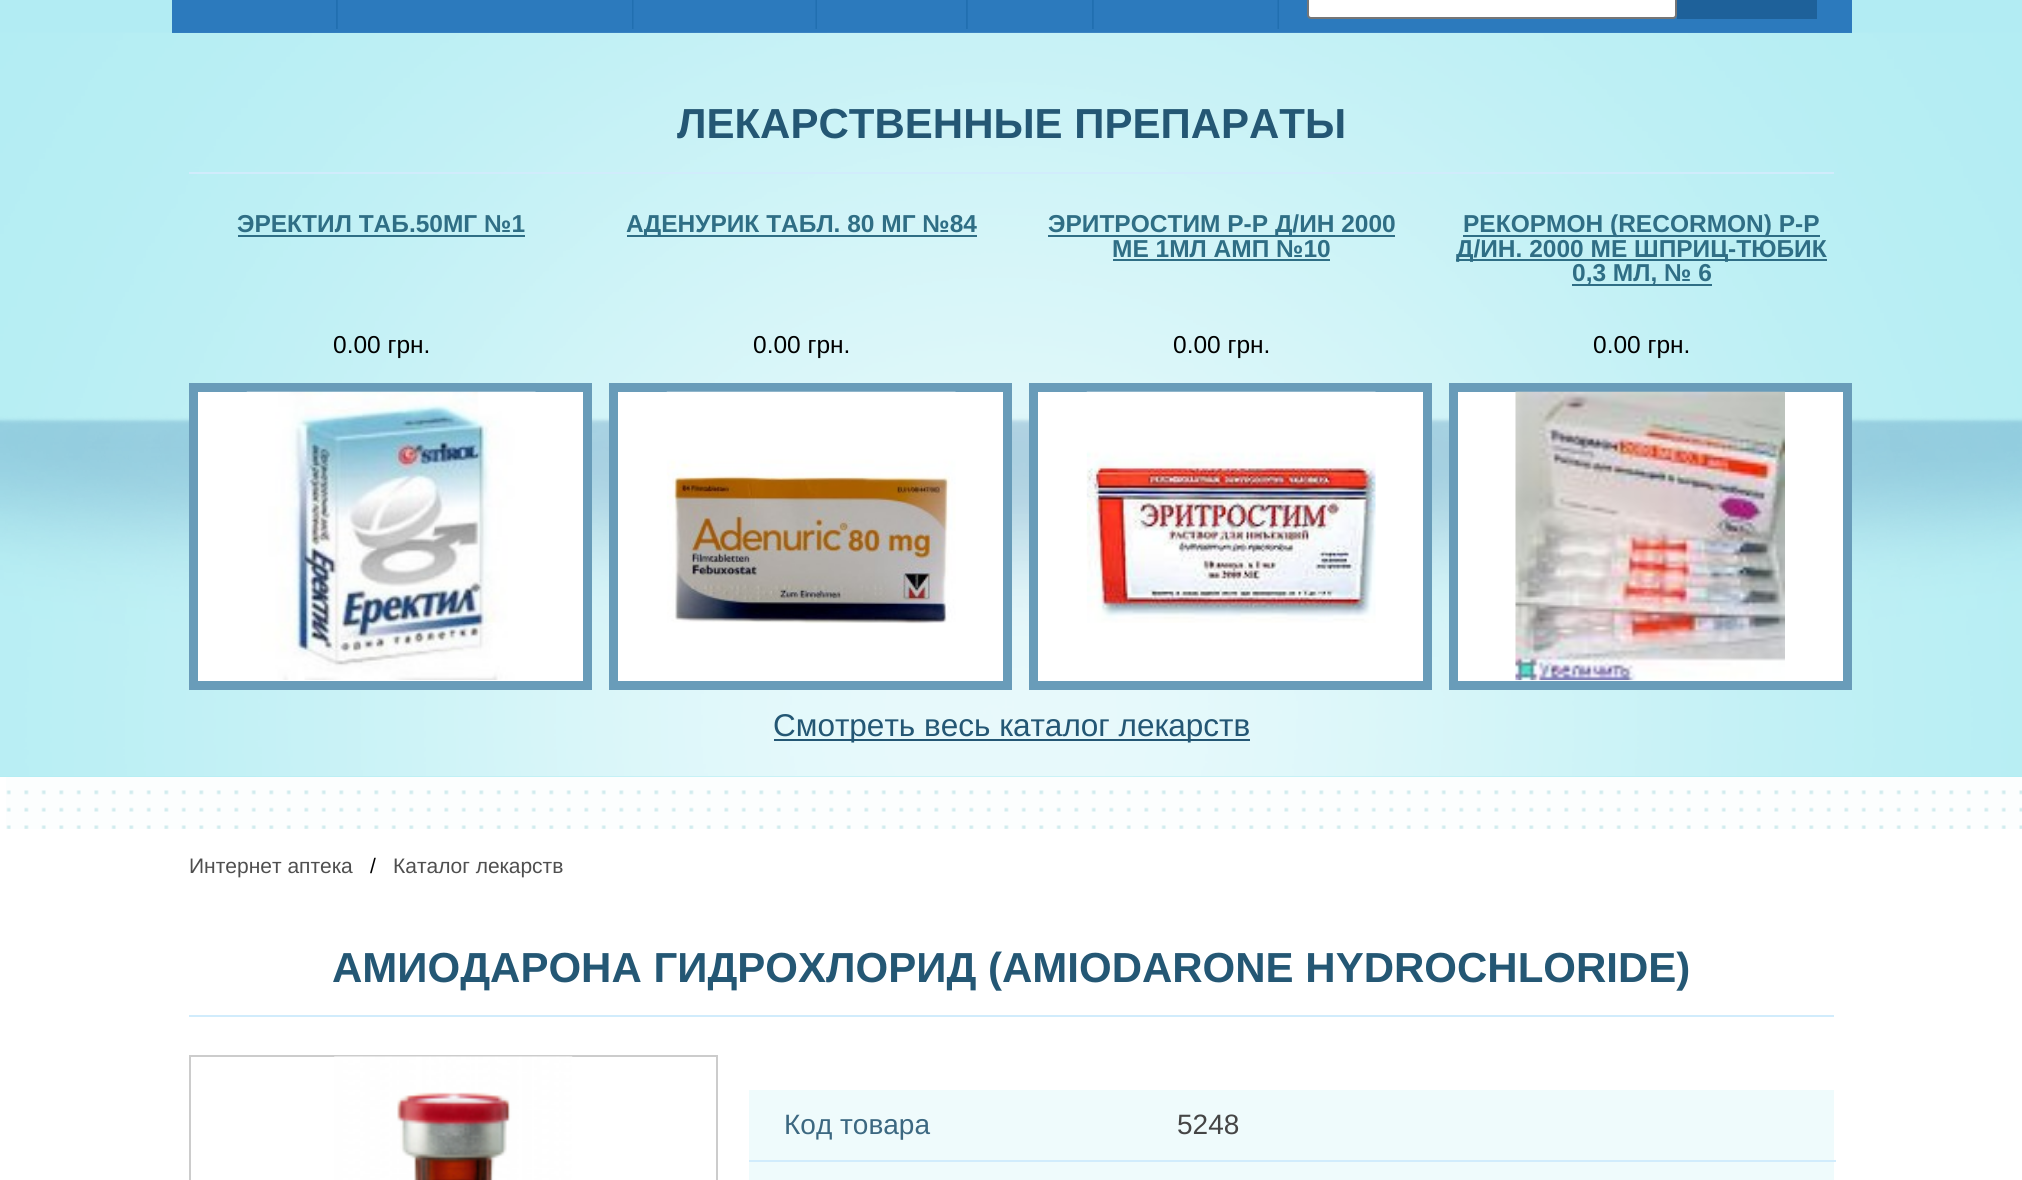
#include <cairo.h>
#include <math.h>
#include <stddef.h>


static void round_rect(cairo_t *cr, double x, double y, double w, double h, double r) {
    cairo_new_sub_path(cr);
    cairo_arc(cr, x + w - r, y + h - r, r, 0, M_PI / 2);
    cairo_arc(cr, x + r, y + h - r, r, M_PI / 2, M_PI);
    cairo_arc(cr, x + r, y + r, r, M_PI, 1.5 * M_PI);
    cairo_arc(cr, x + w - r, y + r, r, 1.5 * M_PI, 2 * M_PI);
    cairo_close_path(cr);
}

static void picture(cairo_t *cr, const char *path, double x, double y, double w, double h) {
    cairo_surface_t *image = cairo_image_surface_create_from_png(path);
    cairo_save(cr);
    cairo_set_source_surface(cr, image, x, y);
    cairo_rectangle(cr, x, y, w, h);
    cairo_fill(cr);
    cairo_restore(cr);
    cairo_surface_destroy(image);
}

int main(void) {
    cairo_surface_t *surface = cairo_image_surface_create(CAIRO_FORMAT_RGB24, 2022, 1180);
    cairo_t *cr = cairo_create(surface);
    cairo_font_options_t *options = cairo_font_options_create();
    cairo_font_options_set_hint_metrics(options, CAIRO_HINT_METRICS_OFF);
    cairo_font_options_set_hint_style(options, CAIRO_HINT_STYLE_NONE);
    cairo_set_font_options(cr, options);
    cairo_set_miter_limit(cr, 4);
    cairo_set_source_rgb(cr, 1, 1, 1);
    cairo_paint(cr);
    picture(cr, "img1.png", 6, 777, 2016, 52);
    cairo_set_source_rgb(cr, 0.698, 0.925, 0.953);
    cairo_rectangle(cr, 0, 0, 2022, 33);
    cairo_fill(cr);
    cairo_set_source_rgb(cr, 0.173, 0.478, 0.741);
    cairo_rectangle(cr, 172, 0, 1680, 33);
    cairo_fill(cr);
    picture(cr, "img2.png", 336, 0, 2, 29);
    picture(cr, "img3.png", 632, 0, 2, 29);
    picture(cr, "img4.png", 815, 0, 2, 29);
    picture(cr, "img2.png", 966, 0, 2, 29);
    picture(cr, "img2.png", 1092, 0, 2, 29);
    picture(cr, "img4.png", 1277, 0, 2, 29);
    cairo_set_source_rgb(cr, 1, 1, 1);
    round_rect(cr, 1308, -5, 368, 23, 3);
    cairo_fill_preserve(cr);
    cairo_set_source_rgb(cr, 0.463, 0.463, 0.463);
    cairo_stroke(cr);
    cairo_set_source_rgb(cr, 0.118, 0.38, 0.604);
    cairo_rectangle(cr, 1677, 0, 140, 19);
    cairo_fill(cr);
    cairo_set_source_rgb(cr, 0.686, 0.922, 0.949);
    cairo_rectangle(cr, 0, 33, 2022, 744);
    cairo_fill(cr);
    picture(cr, "img5.png", 0, 32, 2022, 745);
    cairo_set_source_rgb(cr, 0.82, 0.925, 0.988);
    cairo_rectangle(cr, 189, 172, 1645, 2);
    cairo_fill(cr);
    cairo_select_font_face(cr, "Liberation Sans", CAIRO_FONT_SLANT_NORMAL, CAIRO_FONT_WEIGHT_BOLD);
    cairo_set_font_size(cr, 42);
    cairo_set_source_rgb(cr, 0.141, 0.341, 0.455);
    cairo_move_to(cr, 677, 138);
    cairo_show_text(cr, "ЛЕКАРСТВЕННЫЕ ПРЕПАРАТЫ");
    cairo_set_font_size(cr, 24.5);
    cairo_set_source_rgb(cr, 0.184, 0.431, 0.522);
    cairo_move_to(cr, 237, 232);
    cairo_show_text(cr, "ЭРЕКТИЛ ТАБ.50МГ №1");
    cairo_rectangle(cr, 238, 235, 287, 2);
    cairo_fill(cr);
    cairo_select_font_face(cr, "Liberation Sans", CAIRO_FONT_SLANT_NORMAL, CAIRO_FONT_WEIGHT_NORMAL);
    cairo_set_source_rgb(cr, 0, 0, 0);
    cairo_move_to(cr, 333, 353);
    cairo_show_text(cr, "0.00 грн.");
    cairo_set_source_rgb(cr, 1, 1, 1);
    cairo_rectangle(cr, 193.5, 387.5, 394, 298);
    cairo_fill_preserve(cr);
    cairo_set_source_rgb(cr, 0.412, 0.612, 0.725);
    cairo_set_line_width(cr, 9);
    cairo_stroke(cr);
    picture(cr, "img6.png", 246, 391, 290, 289);
    cairo_set_source_rgb(cr, 0.184, 0.431, 0.522);
    cairo_rectangle(cr, 627, 235, 350, 2);
    cairo_fill(cr);
    cairo_select_font_face(cr, "Liberation Sans", CAIRO_FONT_SLANT_NORMAL, CAIRO_FONT_WEIGHT_BOLD);
    cairo_move_to(cr, 626, 232);
    cairo_show_text(cr, "АДЕНУРИК ТАБЛ. 80 МГ №84");
    cairo_select_font_face(cr, "Liberation Sans", CAIRO_FONT_SLANT_NORMAL, CAIRO_FONT_WEIGHT_NORMAL);
    cairo_set_source_rgb(cr, 0, 0, 0);
    cairo_move_to(cr, 753, 353);
    cairo_show_text(cr, "0.00 грн.");
    cairo_set_source_rgb(cr, 1, 1, 1);
    cairo_rectangle(cr, 613.5, 387.5, 394, 298);
    cairo_fill_preserve(cr);
    cairo_set_source_rgb(cr, 0.412, 0.612, 0.725);
    cairo_stroke(cr);
    picture(cr, "img7.png", 666, 391, 290, 233);
    cairo_set_source_rgb(cr, 0.184, 0.431, 0.522);
    cairo_rectangle(cr, 1048, 235, 347, 2);
    cairo_fill(cr);
    cairo_select_font_face(cr, "Liberation Sans", CAIRO_FONT_SLANT_NORMAL, CAIRO_FONT_WEIGHT_BOLD);
    cairo_move_to(cr, 1048, 232);
    cairo_show_text(cr, "ЭРИТРОСТИМ Р-Р Д/ИН 2000");
    cairo_move_to(cr, 1112, 257);
    cairo_show_text(cr, "МЕ 1МЛ АМП №10");
    cairo_rectangle(cr, 1113, 259, 217, 2);
    cairo_fill(cr);
    cairo_select_font_face(cr, "Liberation Sans", CAIRO_FONT_SLANT_NORMAL, CAIRO_FONT_WEIGHT_NORMAL);
    cairo_set_source_rgb(cr, 0, 0, 0);
    cairo_move_to(cr, 1173, 353);
    cairo_show_text(cr, "0.00 грн.");
    cairo_set_source_rgb(cr, 1, 1, 1);
    cairo_rectangle(cr, 1033.5, 387.5, 394, 298);
    cairo_fill_preserve(cr);
    cairo_set_source_rgb(cr, 0.412, 0.612, 0.725);
    cairo_stroke(cr);
    picture(cr, "img8.png", 1086, 391, 290, 232);
    cairo_set_source_rgb(cr, 0.184, 0.431, 0.522);
    cairo_rectangle(cr, 1463, 235, 357, 2);
    cairo_fill(cr);
    cairo_select_font_face(cr, "Liberation Sans", CAIRO_FONT_SLANT_NORMAL, CAIRO_FONT_WEIGHT_BOLD);
    cairo_move_to(cr, 1463, 232);
    cairo_show_text(cr, "РЕКОРМОН (RECORMON) Р-Р");
    cairo_rectangle(cr, 1456, 259, 371, 2);
    cairo_fill(cr);
    cairo_move_to(cr, 1456, 257);
    cairo_show_text(cr, "Д/ИН. 2000 МЕ ШПРИЦ-ТЮБИК");
    cairo_rectangle(cr, 1572, 284, 140, 2);
    cairo_fill(cr);
    cairo_move_to(cr, 1572, 281);
    cairo_show_text(cr, "0,3 МЛ, № 6");
    cairo_select_font_face(cr, "Liberation Sans", CAIRO_FONT_SLANT_NORMAL, CAIRO_FONT_WEIGHT_NORMAL);
    cairo_set_source_rgb(cr, 0, 0, 0);
    cairo_move_to(cr, 1593, 353);
    cairo_show_text(cr, "0.00 грн.");
    cairo_set_source_rgb(cr, 1, 1, 1);
    cairo_rectangle(cr, 1453.5, 387.5, 394, 298);
    cairo_fill_preserve(cr);
    cairo_set_source_rgb(cr, 0.412, 0.612, 0.725);
    cairo_stroke(cr);
    picture(cr, "img9.png", 1515, 391, 270, 290);
    cairo_set_source_rgb(cr, 0.141, 0.341, 0.455);
    cairo_rectangle(cr, 774, 739, 476, 2);
    cairo_fill(cr);
    cairo_set_font_size(cr, 31.5);
    cairo_move_to(cr, 773, 736);
    cairo_show_text(cr, "Смотреть весь каталог лекарств");
    cairo_set_font_size(cr, 21);
    cairo_set_source_rgb(cr, 0.31, 0.31, 0.31);
    cairo_move_to(cr, 189, 873);
    cairo_show_text(cr, "Интернет аптека");
    cairo_set_source_rgb(cr, 0, 0, 0);
    cairo_move_to(cr, 370, 873);
    cairo_show_text(cr, "/");
    cairo_set_source_rgb(cr, 0.31, 0.31, 0.31);
    cairo_move_to(cr, 393, 873);
    cairo_show_text(cr, "Каталог лекарств");
    cairo_set_source_rgb(cr, 0.82, 0.925, 0.988);
    cairo_rectangle(cr, 189, 1015, 1645, 2);
    cairo_fill(cr);
    cairo_select_font_face(cr, "Liberation Sans", CAIRO_FONT_SLANT_NORMAL, CAIRO_FONT_WEIGHT_BOLD);
    cairo_set_font_size(cr, 42);
    cairo_set_source_rgb(cr, 0.141, 0.341, 0.455);
    cairo_move_to(cr, 332, 982);
    cairo_show_text(cr, "АМИОДАРОНА ГИДРОХЛОРИД (AMIODARONE HYDROCHLORIDE)");
    cairo_rectangle(cr, 190, 1056, 527, 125);
    cairo_set_source_rgb(cr, 0.8, 0.8, 0.8);
    cairo_set_line_width(cr, 2);
    cairo_stroke(cr);
    picture(cr, "img10.png", 334, 1056, 239, 124);
    cairo_set_source_rgb(cr, 0.937, 0.984, 0.988);
    cairo_rectangle(cr, 749, 1090, 1085, 90);
    cairo_fill(cr);
    cairo_select_font_face(cr, "Liberation Sans", CAIRO_FONT_SLANT_NORMAL, CAIRO_FONT_WEIGHT_NORMAL);
    cairo_set_font_size(cr, 28);
    cairo_set_source_rgb(cr, 0.235, 0.408, 0.506);
    cairo_move_to(cr, 784, 1134);
    cairo_show_text(cr, "Код товара");
    cairo_set_source_rgb(cr, 0.271, 0.271, 0.271);
    cairo_move_to(cr, 1177, 1134);
    cairo_show_text(cr, "5248");
    cairo_set_source_rgb(cr, 0.82, 0.925, 0.988);
    cairo_rectangle(cr, 749, 1160, 1087, 2);
    cairo_fill(cr);
    cairo_surface_write_to_png(surface, "page.png");
    cairo_font_options_destroy(options);
    cairo_destroy(cr);
    cairo_surface_destroy(surface);
    return 0;
}
